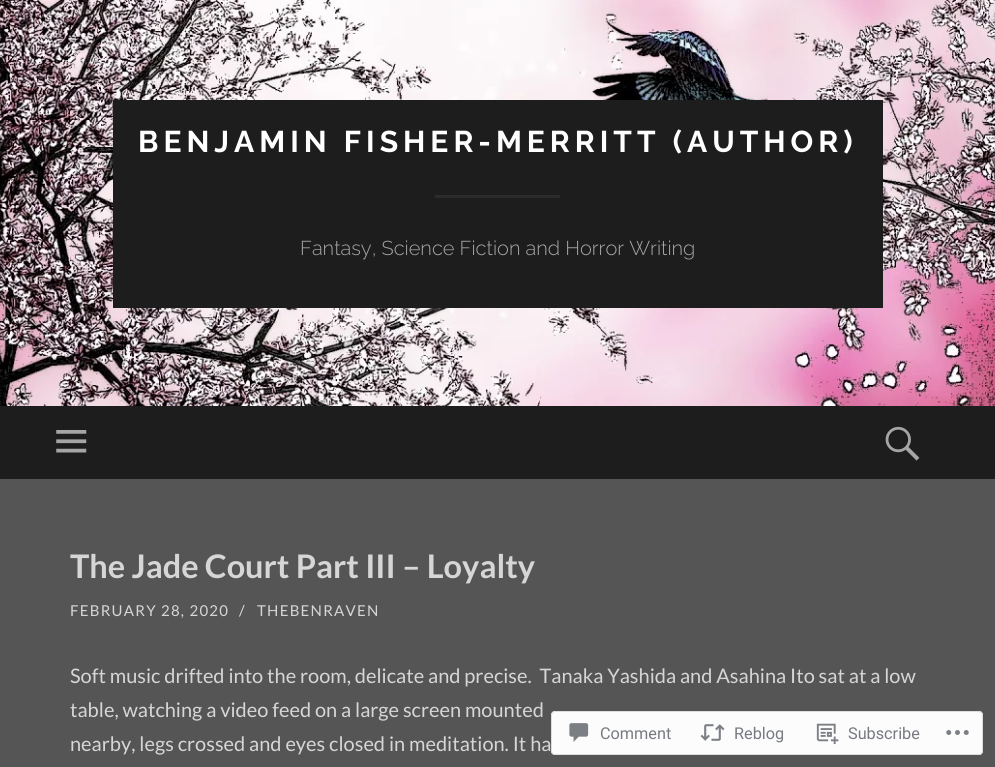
#include <cairo.h>
#include <math.h>
#include <stddef.h>


static void spaced_text(cairo_t *cr, double x, double y, const char *s, double letter, double word) {
    cairo_move_to(cr, x, y);
    while (*s) {
        char ch[5] = {0};
        int n = 0;
        do ch[n++] = *s++; while ((*s & 0xC0) == 0x80);
        cairo_show_text(cr, ch);
        cairo_rel_move_to(cr, letter + word * (*ch == ' '), 0);
    }
}

static void round_rect(cairo_t *cr, double x, double y, double w, double h, double r) {
    cairo_new_sub_path(cr);
    cairo_arc(cr, x + w - r, y + h - r, r, 0, M_PI / 2);
    cairo_arc(cr, x + r, y + h - r, r, M_PI / 2, M_PI);
    cairo_arc(cr, x + r, y + r, r, M_PI, 1.5 * M_PI);
    cairo_arc(cr, x + w - r, y + r, r, 1.5 * M_PI, 2 * M_PI);
    cairo_close_path(cr);
}

static void picture(cairo_t *cr, const char *path, double x, double y, double w, double h) {
    cairo_surface_t *image = cairo_image_surface_create_from_png(path);
    cairo_save(cr);
    cairo_set_source_surface(cr, image, x, y);
    cairo_rectangle(cr, x, y, w, h);
    cairo_fill(cr);
    cairo_restore(cr);
    cairo_surface_destroy(image);
}

int main(void) {
    cairo_surface_t *surface = cairo_image_surface_create(CAIRO_FORMAT_RGB24, 995, 767);
    cairo_t *cr = cairo_create(surface);
    cairo_font_options_t *options = cairo_font_options_create();
    cairo_font_options_set_hint_metrics(options, CAIRO_HINT_METRICS_OFF);
    cairo_font_options_set_hint_style(options, CAIRO_HINT_STYLE_NONE);
    cairo_set_font_options(cr, options);
    cairo_set_miter_limit(cr, 4);
    cairo_set_source_rgb(cr, 0.333, 0.333, 0.333);
    cairo_paint(cr);
    picture(cr, "img1.png", 0, 0, 995, 406);
    cairo_set_source_rgb(cr, 0.114, 0.114, 0.114);
    cairo_rectangle(cr, 113, 100, 770, 208);
    cairo_fill(cr);
    cairo_select_font_face(cr, "Raleway", CAIRO_FONT_SLANT_NORMAL, CAIRO_FONT_WEIGHT_BOLD);
    cairo_set_font_size(cr, 30);
    cairo_set_source_rgb(cr, 1, 1, 1);
    spaced_text(cr, 138, 152, "BENJAMIN FISHER-MERRITT (AUTHOR)", 5, 0);
    cairo_set_source_rgb(cr, 0.169, 0.169, 0.169);
    cairo_rectangle(cr, 435, 195, 125, 3);
    cairo_fill(cr);
    cairo_select_font_face(cr, "Raleway Light", CAIRO_FONT_SLANT_NORMAL, CAIRO_FONT_WEIGHT_NORMAL);
    cairo_set_font_size(cr, 20);
    cairo_set_source_rgb(cr, 0.647, 0.647, 0.647);
    cairo_move_to(cr, 300, 255);
    cairo_show_text(cr, "Fantasy, Science Fiction and Horror Writing");
    cairo_set_source_rgb(cr, 0.114, 0.114, 0.114);
    cairo_rectangle(cr, 0, 406, 995, 73);
    cairo_fill(cr);
    picture(cr, "img2.png", 56, 430, 31, 23);
    picture(cr, "img3.png", 885, 426, 35, 35);
    cairo_select_font_face(cr, "Lato", CAIRO_FONT_SLANT_NORMAL, CAIRO_FONT_WEIGHT_BOLD);
    cairo_set_font_size(cr, 32.5);
    cairo_set_source_rgb(cr, 0.839, 0.839, 0.839);
    cairo_move_to(cr, 70, 578);
    cairo_show_text(cr, "The Jade Court Part III – Loyalty");
    cairo_select_font_face(cr, "Lato", CAIRO_FONT_SLANT_NORMAL, CAIRO_FONT_WEIGHT_NORMAL);
    cairo_set_font_size(cr, 15);
    spaced_text(cr, 70, 616, "FEBRUARY 28, 2020", 1.25, 0);
    cairo_set_source_rgb(cr, 0.867, 0.867, 0.867);
    spaced_text(cr, 239, 616, "/", 1.25, 0);
    cairo_set_source_rgb(cr, 0.839, 0.839, 0.839);
    spaced_text(cr, 257, 616, "THEBENRAVEN", 1.25, 0);
    cairo_set_font_size(cr, 20);
    cairo_move_to(cr, 70, 683);
    cairo_show_text(cr, "Soft music drifted into the room, delicate and precise.  Tanaka Yashida and Asahina Ito sat at a low");
    cairo_move_to(cr, 70, 717);
    cairo_show_text(cr, "table, watching a video feed on a large screen mounted");
    cairo_move_to(cr, 70, 751);
    cairo_show_text(cr, "nearby, legs crossed and eyes closed in meditation. It ha");
    cairo_set_source_rgba(cr, 1, 1, 1, 0.98);
    round_rect(cr, 551, 711, 432, 44, 4);
    cairo_fill(cr);
    round_rect(cr, 551.5, 711.5, 431, 43, 3.5);
    cairo_set_source_rgba(cr, 0.863, 0.863, 0.871, 0.98);
    cairo_set_line_width(cr, 1);
    cairo_stroke(cr);
    picture(cr, "img4.png", 569, 723, 20, 19);
    cairo_select_font_face(cr, "Roboto", CAIRO_FONT_SLANT_NORMAL, CAIRO_FONT_WEIGHT_NORMAL);
    cairo_set_font_size(cr, 16.25);
    cairo_set_source_rgb(cr, 0.467, 0.482, 0.506);
    cairo_move_to(cr, 600, 739);
    cairo_show_text(cr, "Comment");
    picture(cr, "img5.png", 700, 724, 25, 17);
    cairo_move_to(cr, 734, 739);
    cairo_show_text(cr, "Reblog");
    picture(cr, "img6.png", 816, 723, 23, 22);
    cairo_move_to(cr, 848, 739);
    cairo_show_text(cr, "Subscribe");
    picture(cr, "img7.png", 946, 730, 23, 5);
    cairo_surface_write_to_png(surface, "page.png");
    cairo_font_options_destroy(options);
    cairo_destroy(cr);
    cairo_surface_destroy(surface);
    return 0;
}
